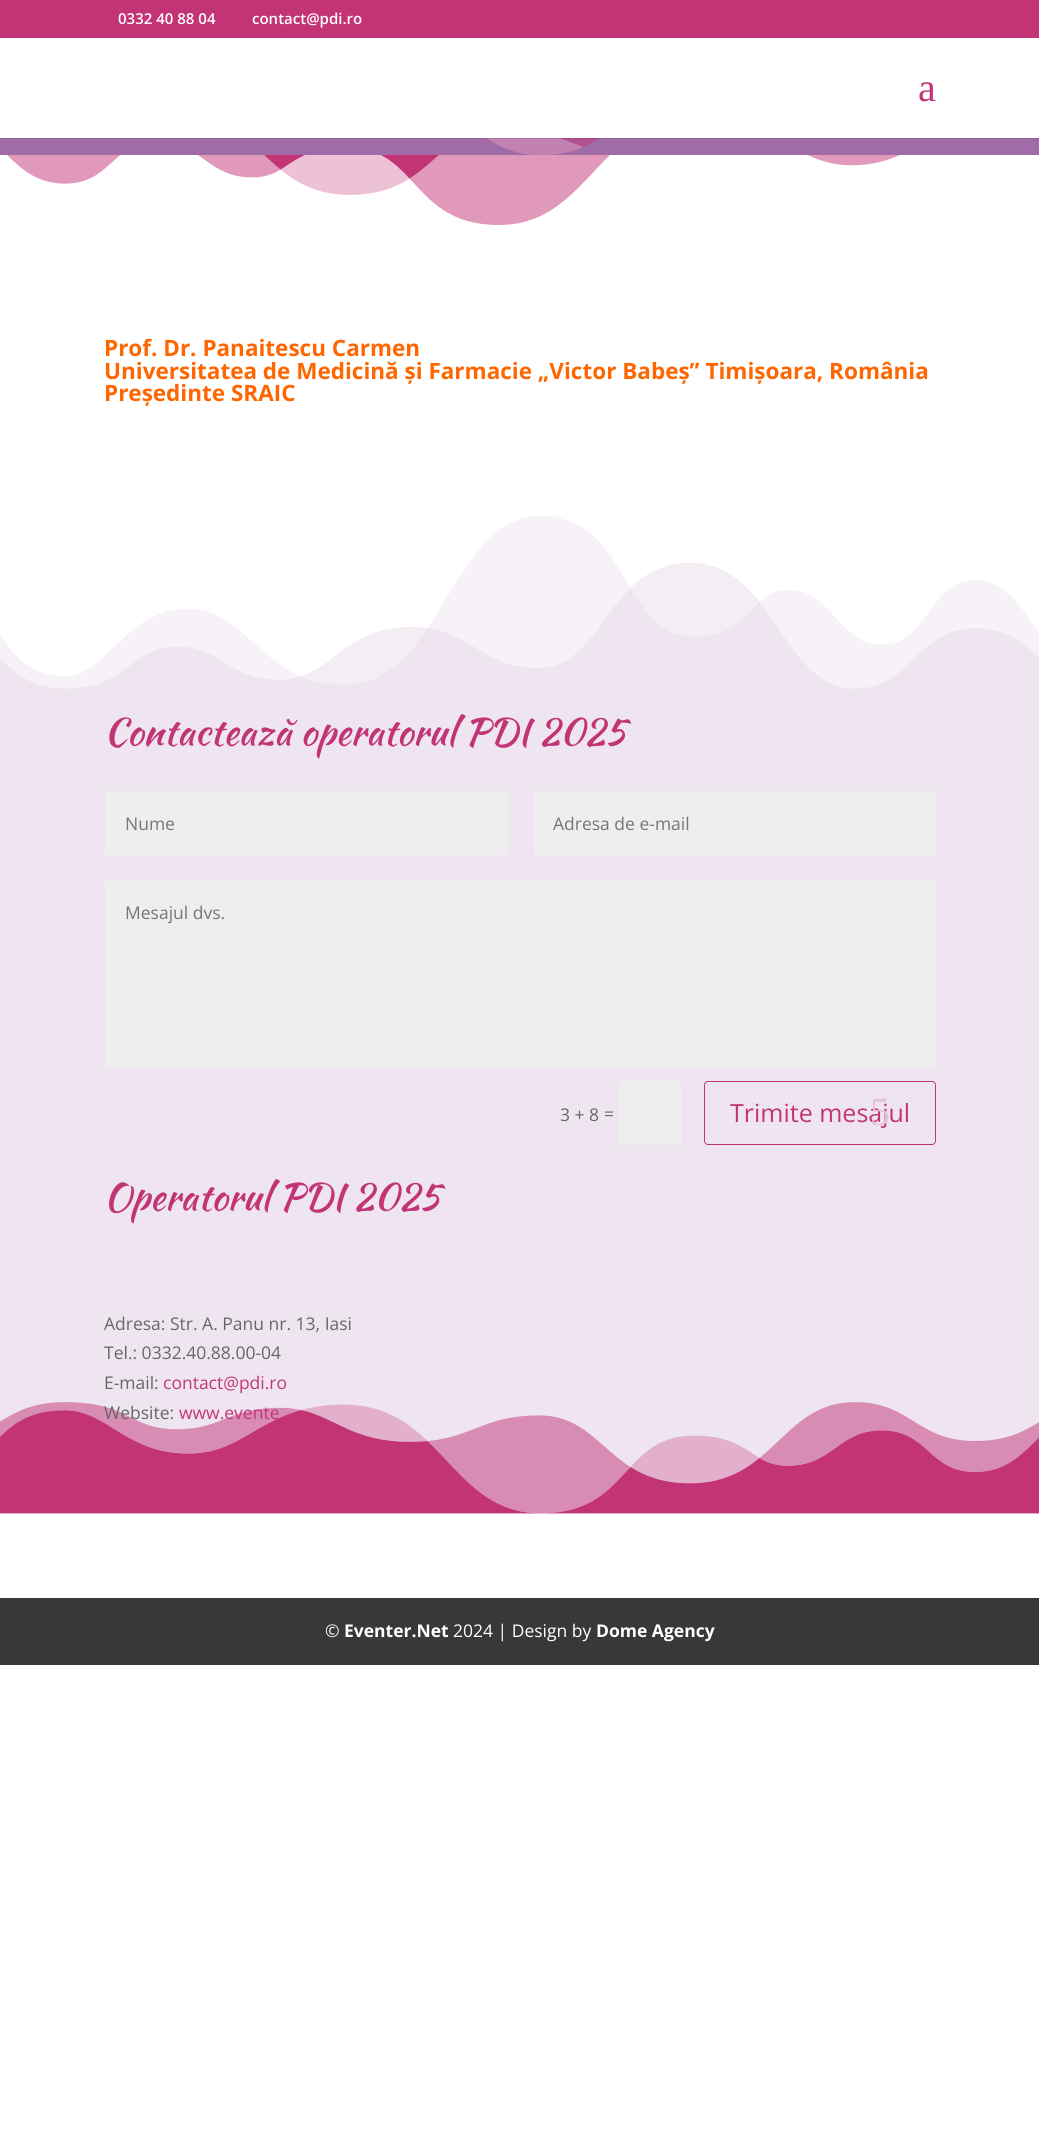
#include <cairo.h>
#include <math.h>
#include <stddef.h>


static void round_rect(cairo_t *cr, double x, double y, double w, double h, double r) {
    cairo_new_sub_path(cr);
    cairo_arc(cr, x + w - r, y + h - r, r, 0, M_PI / 2);
    cairo_arc(cr, x + r, y + h - r, r, M_PI / 2, M_PI);
    cairo_arc(cr, x + r, y + r, r, M_PI, 1.5 * M_PI);
    cairo_arc(cr, x + w - r, y + r, r, 1.5 * M_PI, 2 * M_PI);
    cairo_close_path(cr);
}

static void picture(cairo_t *cr, const char *path, double x, double y, double w, double h) {
    cairo_surface_t *image = cairo_image_surface_create_from_png(path);
    cairo_save(cr);
    cairo_set_source_surface(cr, image, x, y);
    cairo_rectangle(cr, x, y, w, h);
    cairo_fill(cr);
    cairo_restore(cr);
    cairo_surface_destroy(image);
}

int main(void) {
    cairo_surface_t *surface = cairo_image_surface_create(CAIRO_FORMAT_RGB24, 1039, 2147);
    cairo_t *cr = cairo_create(surface);
    cairo_font_options_t *options = cairo_font_options_create();
    cairo_font_options_set_hint_metrics(options, CAIRO_HINT_METRICS_OFF);
    cairo_font_options_set_hint_style(options, CAIRO_HINT_STYLE_NONE);
    cairo_set_font_options(cr, options);
    cairo_set_miter_limit(cr, 4);
    cairo_set_source_rgb(cr, 1, 1, 1);
    cairo_paint(cr);
    cairo_set_source_rgb(cr, 0.761, 0.204, 0.463);
    cairo_rectangle(cr, 0, 0, 1039, 38);
    cairo_fill(cr);
    cairo_select_font_face(cr, "Open Sans SemiBold", CAIRO_FONT_SLANT_NORMAL, CAIRO_FONT_WEIGHT_NORMAL);
    cairo_set_font_size(cr, 15);
    cairo_set_source_rgb(cr, 1, 1, 1);
    cairo_move_to(cr, 118, 24);
    cairo_show_text(cr, "0332 40 88 04");
    cairo_move_to(cr, 252, 24);
    cairo_show_text(cr, "contact@pdi.ro");
    picture(cr, "img2.png", 7, 138, 893, 87);
    picture(cr, "img1.png", 0, 138, 1039, 17);
    cairo_set_source_rgba(cr, 0, 0, 0, 0.1);
    cairo_rectangle(cr, 0, 138, 1039, 1);
    cairo_fill(cr);
    cairo_select_font_face(cr, "Liberation Serif", CAIRO_FONT_SLANT_NORMAL, CAIRO_FONT_WEIGHT_NORMAL);
    cairo_set_font_size(cr, 40);
    cairo_set_source_rgb(cr, 0.761, 0.204, 0.463);
    cairo_move_to(cr, 918, 101);
    cairo_show_text(cr, "a");
    cairo_select_font_face(cr, "Open Sans", CAIRO_FONT_SLANT_NORMAL, CAIRO_FONT_WEIGHT_BOLD);
    cairo_set_font_size(cr, 22.5);
    cairo_set_source_rgb(cr, 1, 0.4, 0);
    cairo_move_to(cr, 104, 356);
    cairo_show_text(cr, "Prof. Dr. Panaitescu Carmen");
    cairo_move_to(cr, 104, 379);
    cairo_show_text(cr, "Universitatea de Medicină și Farmacie „Victor Babeș” Timișoara, România");
    cairo_move_to(cr, 104, 401);
    cairo_show_text(cr, "Președinte SRAIC");
    cairo_set_source_rgb(cr, 0.937, 0.898, 0.941);
    cairo_rectangle(cr, 0, 516, 1039, 998);
    cairo_fill(cr);
    picture(cr, "img3.png", 0, 516, 1039, 173);
    cairo_select_font_face(cr, "Kaushan Script", CAIRO_FONT_SLANT_NORMAL, CAIRO_FONT_WEIGHT_NORMAL);
    cairo_set_font_size(cr, 37.5);
    cairo_set_source_rgb(cr, 0.761, 0.204, 0.463);
    cairo_move_to(cr, 104, 745);
    cairo_show_text(cr, "Contactează operatorul PDI 2025");
    cairo_set_source_rgb(cr, 0.933, 0.933, 0.933);
    cairo_rectangle(cr, 105, 791, 403, 64);
    cairo_fill(cr);
    cairo_select_font_face(cr, "Open Sans", CAIRO_FONT_SLANT_NORMAL, CAIRO_FONT_WEIGHT_NORMAL);
    cairo_set_font_size(cr, 17.5);
    cairo_set_source_rgb(cr, 0.459, 0.459, 0.459);
    cairo_move_to(cr, 125, 830);
    cairo_show_text(cr, "Nume");
    cairo_set_source_rgb(cr, 0.933, 0.933, 0.933);
    cairo_rectangle(cr, 534, 791, 402, 64);
    cairo_fill(cr);
    cairo_set_source_rgb(cr, 0.459, 0.459, 0.459);
    cairo_move_to(cr, 553, 830);
    cairo_show_text(cr, "Adresa de e-mail");
    cairo_set_source_rgb(cr, 0.933, 0.933, 0.933);
    cairo_rectangle(cr, 105, 881, 831, 188);
    cairo_fill(cr);
    cairo_set_source_rgb(cr, 0.459, 0.459, 0.459);
    cairo_move_to(cr, 125, 919);
    cairo_show_text(cr, "Mesajul dvs.");
    cairo_set_source_rgb(cr, 0.4, 0.4, 0.4);
    cairo_move_to(cr, 560, 1121);
    cairo_show_text(cr, "3 + 8");
    cairo_move_to(cr, 604, 1120);
    cairo_show_text(cr, "=");
    cairo_set_source_rgb(cr, 0.933, 0.933, 0.933);
    cairo_rectangle(cr, 619, 1081, 62, 64);
    cairo_fill(cr);
    round_rect(cr, 704.5, 1081.5, 231, 63, 3.5);
    cairo_set_source_rgb(cr, 0.761, 0.204, 0.463);
    cairo_set_line_width(cr, 1);
    cairo_stroke(cr);
    cairo_set_font_size(cr, 25);
    cairo_move_to(cr, 730, 1122);
    cairo_show_text(cr, "Trimite mesajul");
    cairo_select_font_face(cr, "Liberation Serif", CAIRO_FONT_SLANT_NORMAL, CAIRO_FONT_WEIGHT_NORMAL);
    cairo_set_font_size(cr, 40);
    cairo_set_source_rgb(cr, 0.902, 0.757, 0.843);
    cairo_move_to(cr, 870, 1125);
    cairo_show_text(cr, "5");
    cairo_select_font_face(cr, "Kaushan Script", CAIRO_FONT_SLANT_NORMAL, CAIRO_FONT_WEIGHT_NORMAL);
    cairo_set_font_size(cr, 37.5);
    cairo_set_source_rgb(cr, 0.761, 0.204, 0.463);
    cairo_move_to(cr, 104, 1210);
    cairo_show_text(cr, "Operatorul PDI 2025");
    cairo_select_font_face(cr, "Open Sans", CAIRO_FONT_SLANT_NORMAL, CAIRO_FONT_WEIGHT_NORMAL);
    cairo_set_font_size(cr, 17.5);
    cairo_set_source_rgb(cr, 0.4, 0.4, 0.4);
    cairo_move_to(cr, 104, 1330);
    cairo_show_text(cr, "Adresa: Str. A. Panu nr. 13, Iasi");
    cairo_move_to(cr, 104, 1359);
    cairo_show_text(cr, "Tel.: 0332.40.88.00-04");
    cairo_move_to(cr, 104, 1389);
    cairo_show_text(cr, "E-mail:");
    cairo_set_source_rgb(cr, 0.761, 0.204, 0.463);
    cairo_move_to(cr, 163, 1389);
    cairo_show_text(cr, "contact@pdi.ro");
    picture(cr, "img4.png", 0, 1402, 1039, 112);
    cairo_set_source_rgb(cr, 0.4, 0.4, 0.4);
    cairo_move_to(cr, 104, 1419);
    cairo_show_text(cr, "Website:");
    cairo_set_source_rgb(cr, 0.761, 0.204, 0.463);
    cairo_move_to(cr, 179, 1419);
    cairo_show_text(cr, "www.evente");
    cairo_set_source_rgb(cr, 0.22, 0.22, 0.22);
    cairo_rectangle(cr, 0, 1598, 1039, 67);
    cairo_fill(cr);
    cairo_set_source_rgb(cr, 1, 1, 1);
    cairo_move_to(cr, 325, 1637);
    cairo_show_text(cr, "©");
    cairo_select_font_face(cr, "Open Sans", CAIRO_FONT_SLANT_NORMAL, CAIRO_FONT_WEIGHT_BOLD);
    cairo_move_to(cr, 344, 1637);
    cairo_show_text(cr, "Eventer.Net");
    cairo_select_font_face(cr, "Open Sans", CAIRO_FONT_SLANT_NORMAL, CAIRO_FONT_WEIGHT_NORMAL);
    cairo_move_to(cr, 453, 1637);
    cairo_show_text(cr, "2024 | Design by");
    cairo_select_font_face(cr, "Open Sans", CAIRO_FONT_SLANT_NORMAL, CAIRO_FONT_WEIGHT_BOLD);
    cairo_move_to(cr, 596, 1637);
    cairo_show_text(cr, "Dome Agency");
    cairo_surface_write_to_png(surface, "page.png");
    cairo_font_options_destroy(options);
    cairo_destroy(cr);
    cairo_surface_destroy(surface);
    return 0;
}
